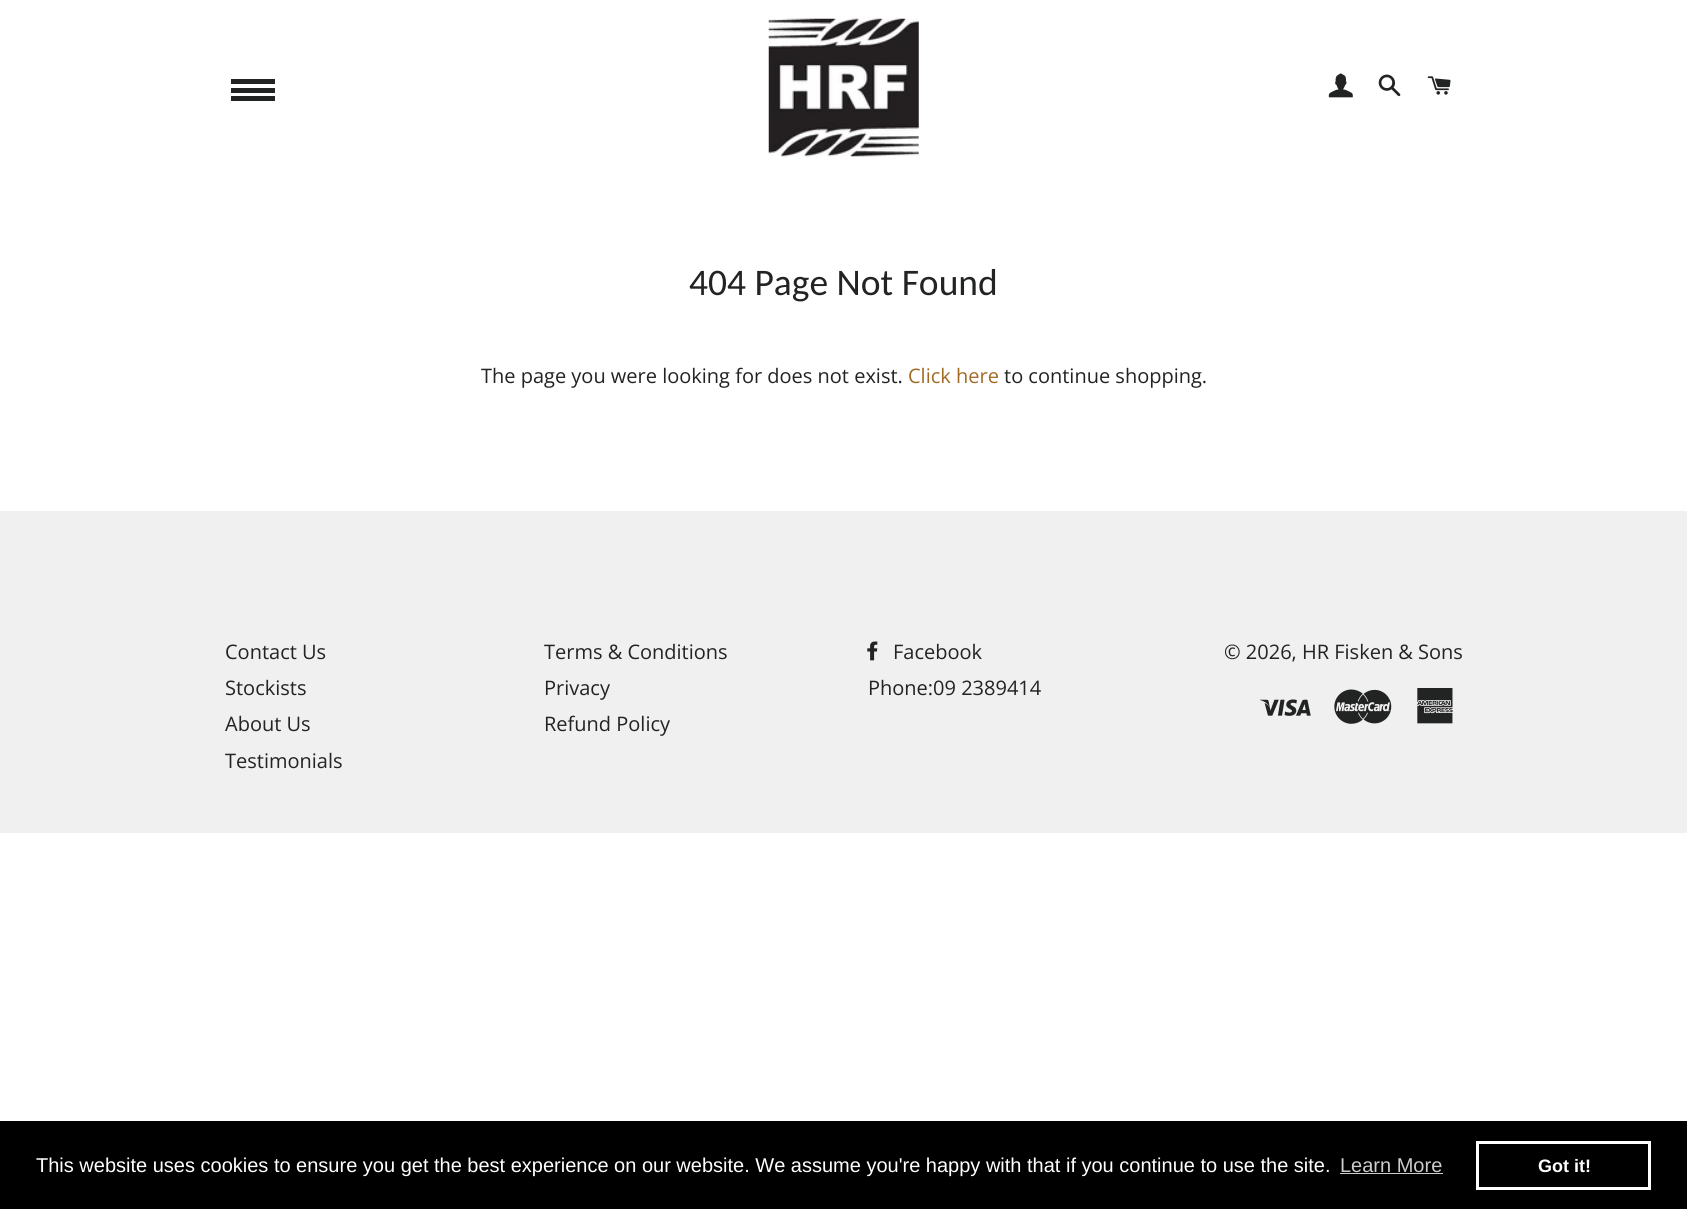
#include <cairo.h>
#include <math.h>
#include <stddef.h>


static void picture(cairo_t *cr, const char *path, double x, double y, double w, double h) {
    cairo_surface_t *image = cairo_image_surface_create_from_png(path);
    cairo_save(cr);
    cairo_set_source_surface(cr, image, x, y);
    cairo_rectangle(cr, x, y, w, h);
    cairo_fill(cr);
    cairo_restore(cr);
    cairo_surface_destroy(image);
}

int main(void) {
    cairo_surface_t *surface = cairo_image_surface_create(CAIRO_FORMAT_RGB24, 1687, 1209);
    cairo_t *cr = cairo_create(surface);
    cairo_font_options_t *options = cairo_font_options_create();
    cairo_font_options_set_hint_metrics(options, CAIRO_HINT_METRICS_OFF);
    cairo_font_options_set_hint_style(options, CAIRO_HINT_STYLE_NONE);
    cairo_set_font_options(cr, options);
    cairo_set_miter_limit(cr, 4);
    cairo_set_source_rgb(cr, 1, 1, 1);
    cairo_paint(cr);
    cairo_set_source_rgb(cr, 0.133, 0.137, 0.137);
    cairo_rectangle(cr, 231, 79, 44, 5);
    cairo_fill(cr);
    cairo_rectangle(cr, 231, 88, 44, 5);
    cairo_fill(cr);
    cairo_rectangle(cr, 231, 96, 44, 5);
    cairo_fill(cr);
    picture(cr, "img1.png", 768, 18, 151, 139);
    picture(cr, "img2.png", 1328, 73, 25, 25);
    picture(cr, "img3.png", 1378, 74, 23, 23);
    picture(cr, "img4.png", 1427, 76, 24, 19);
    cairo_select_font_face(cr, "Carlito", CAIRO_FONT_SLANT_NORMAL, CAIRO_FONT_WEIGHT_NORMAL);
    cairo_set_font_size(cr, 37.5);
    cairo_move_to(cr, 689, 295);
    cairo_show_text(cr, "404 Page Not Found");
    cairo_select_font_face(cr, "Open Sans", CAIRO_FONT_SLANT_NORMAL, CAIRO_FONT_WEIGHT_NORMAL);
    cairo_set_font_size(cr, 20);
    cairo_move_to(cr, 481, 383);
    cairo_show_text(cr, "The page you were looking for does not exist.");
    cairo_set_source_rgb(cr, 0.635, 0.42, 0.145);
    cairo_move_to(cr, 908, 383);
    cairo_show_text(cr, "Click here");
    cairo_set_source_rgb(cr, 0.133, 0.137, 0.137);
    cairo_move_to(cr, 1004, 383);
    cairo_show_text(cr, "to continue shopping.");
    cairo_set_source_rgb(cr, 0.941, 0.941, 0.941);
    cairo_rectangle(cr, 0, 511, 1687, 322);
    cairo_fill(cr);
    cairo_set_source_rgb(cr, 0.133, 0.137, 0.137);
    cairo_move_to(cr, 225, 659);
    cairo_show_text(cr, "Contact Us");
    cairo_move_to(cr, 225, 695);
    cairo_show_text(cr, "Stockists");
    cairo_move_to(cr, 225, 731);
    cairo_show_text(cr, "About Us");
    cairo_move_to(cr, 225, 768);
    cairo_show_text(cr, "Testimonials");
    cairo_move_to(cr, 544, 659);
    cairo_show_text(cr, "Terms & Conditions");
    cairo_move_to(cr, 544, 695);
    cairo_show_text(cr, "Privacy");
    cairo_move_to(cr, 544, 731);
    cairo_show_text(cr, "Refund Policy");
    picture(cr, "img5.png", 867, 641, 11, 20);
    cairo_move_to(cr, 893, 659);
    cairo_show_text(cr, "Facebook");
    cairo_move_to(cr, 868, 695);
    cairo_show_text(cr, "Phone:09 2389414");
    cairo_move_to(cr, 1224, 659);
    cairo_show_text(cr, "© 2026, HR Fisken & Sons");
    picture(cr, "img6.png", 1260, 699, 51, 17);
    picture(cr, "img7.png", 1334, 689, 58, 35);
    picture(cr, "img8.png", 1417, 688, 36, 36);
    cairo_set_source_rgb(cr, 0, 0, 0);
    cairo_rectangle(cr, 0, 1121, 1687, 88);
    cairo_fill(cr);
    cairo_select_font_face(cr, "Liberation Sans", CAIRO_FONT_SLANT_NORMAL, CAIRO_FONT_WEIGHT_NORMAL);
    cairo_set_source_rgb(cr, 1, 1, 1);
    cairo_move_to(cr, 36, 1172);
    cairo_show_text(cr, "This website uses cookies to ensure you get the best experience on our website. We assume you're happy with that if you continue to use the site.");
    cairo_set_source_rgb(cr, 0.8, 0.8, 0.8);
    cairo_move_to(cr, 1340, 1172);
    cairo_show_text(cr, "Learn More");
    cairo_rectangle(cr, 1340, 1173, 103, 1);
    cairo_fill(cr);
    cairo_rectangle(cr, 1477.5, 1142.5, 172, 46);
    cairo_set_source_rgb(cr, 1, 1, 1);
    cairo_set_line_width(cr, 3);
    cairo_stroke(cr);
    cairo_select_font_face(cr, "Liberation Sans", CAIRO_FONT_SLANT_NORMAL, CAIRO_FONT_WEIGHT_BOLD);
    cairo_set_font_size(cr, 18);
    cairo_move_to(cr, 1538, 1172);
    cairo_show_text(cr, "Got it!");
    cairo_surface_write_to_png(surface, "page.png");
    cairo_font_options_destroy(options);
    cairo_destroy(cr);
    cairo_surface_destroy(surface);
    return 0;
}
